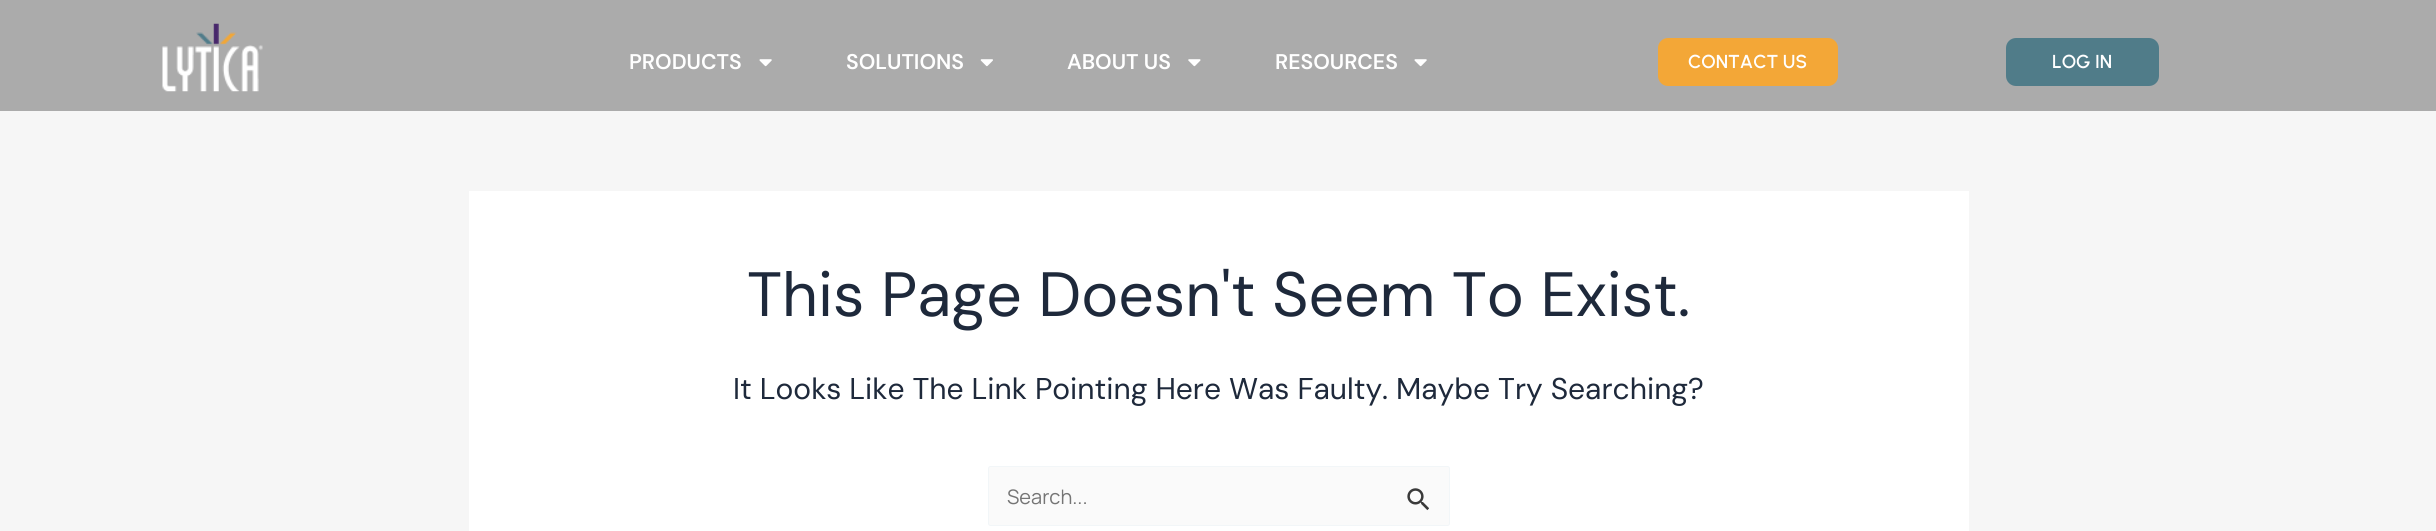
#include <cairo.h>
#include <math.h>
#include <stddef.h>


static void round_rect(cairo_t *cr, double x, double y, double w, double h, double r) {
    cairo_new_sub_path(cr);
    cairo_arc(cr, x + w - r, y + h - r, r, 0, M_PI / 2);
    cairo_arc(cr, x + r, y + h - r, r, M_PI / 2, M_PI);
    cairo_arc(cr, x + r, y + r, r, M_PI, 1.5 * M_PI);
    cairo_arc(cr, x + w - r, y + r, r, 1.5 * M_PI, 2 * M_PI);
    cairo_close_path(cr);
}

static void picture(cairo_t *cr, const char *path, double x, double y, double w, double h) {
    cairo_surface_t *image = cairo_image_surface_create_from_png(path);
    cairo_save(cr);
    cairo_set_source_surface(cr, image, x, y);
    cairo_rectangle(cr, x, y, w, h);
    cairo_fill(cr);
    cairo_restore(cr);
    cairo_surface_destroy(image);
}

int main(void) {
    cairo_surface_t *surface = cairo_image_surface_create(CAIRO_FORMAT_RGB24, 2436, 531);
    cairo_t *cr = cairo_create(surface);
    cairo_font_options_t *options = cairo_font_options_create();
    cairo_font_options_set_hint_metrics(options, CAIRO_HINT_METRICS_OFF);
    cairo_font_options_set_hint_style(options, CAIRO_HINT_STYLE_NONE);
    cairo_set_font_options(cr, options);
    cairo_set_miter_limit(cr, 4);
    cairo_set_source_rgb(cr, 0.961, 0.961, 0.961);
    cairo_paint(cr);
    cairo_set_source_rgb(cr, 0.671, 0.671, 0.671);
    cairo_rectangle(cr, 0, 0, 2436, 111);
    cairo_fill(cr);
    picture(cr, "img1.png", 162, 23, 101, 69);
    cairo_select_font_face(cr, "DM Sans SemiBold", CAIRO_FONT_SLANT_NORMAL, CAIRO_FONT_WEIGHT_NORMAL);
    cairo_set_font_size(cr, 21.25);
    cairo_set_source_rgb(cr, 1, 1, 1);
    cairo_move_to(cr, 629, 69);
    cairo_show_text(cr, "PRODUCTS");
    picture(cr, "img2.png", 759, 59, 13, 8);
    cairo_move_to(cr, 846, 69);
    cairo_show_text(cr, "SOLUTIONS");
    picture(cr, "img3.png", 980, 59, 13, 8);
    cairo_move_to(cr, 1067, 69);
    cairo_show_text(cr, "ABOUT US");
    picture(cr, "img4.png", 1188, 59, 13, 8);
    cairo_move_to(cr, 1275, 69);
    cairo_show_text(cr, "RESOURCES");
    picture(cr, "img2.png", 1414, 59, 13, 8);
    cairo_set_source_rgb(cr, 0.953, 0.655, 0.216);
    round_rect(cr, 1658, 38, 180, 48, 10);
    cairo_fill(cr);
    cairo_select_font_face(cr, "Urbanist SemiBold", CAIRO_FONT_SLANT_NORMAL, CAIRO_FONT_WEIGHT_NORMAL);
    cairo_set_font_size(cr, 18.75);
    cairo_set_source_rgb(cr, 1, 1, 1);
    cairo_move_to(cr, 1688, 68);
    cairo_show_text(cr, "CONTACT US");
    cairo_set_source_rgb(cr, 0.314, 0.486, 0.537);
    round_rect(cr, 2006, 38, 153, 48, 10);
    cairo_fill(cr);
    cairo_set_source_rgb(cr, 1, 1, 1);
    cairo_move_to(cr, 2052, 68);
    cairo_show_text(cr, "LOG IN");
    cairo_rectangle(cr, 469, 191, 1500, 340);
    cairo_fill(cr);
    cairo_select_font_face(cr, "DM Sans", CAIRO_FONT_SLANT_NORMAL, CAIRO_FONT_WEIGHT_NORMAL);
    cairo_set_font_size(cr, 62.5);
    cairo_set_source_rgb(cr, 0.118, 0.161, 0.231);
    cairo_move_to(cr, 747, 316);
    cairo_show_text(cr, "This Page Doesn't Seem To Exist.");
    cairo_set_font_size(cr, 30);
    cairo_move_to(cr, 733, 399);
    cairo_show_text(cr, "It Looks Like The Link Pointing Here Was Faulty. Maybe Try Searching?");
    cairo_set_source_rgb(cr, 0.98, 0.98, 0.98);
    round_rect(cr, 988.5, 466.5, 461, 59, 2);
    cairo_fill_preserve(cr);
    cairo_set_source_rgb(cr, 0.949, 0.961, 0.969);
    cairo_set_line_width(cr, 1);
    cairo_stroke(cr);
    cairo_select_font_face(cr, "Manrope", CAIRO_FONT_SLANT_NORMAL, CAIRO_FONT_WEIGHT_NORMAL);
    cairo_set_font_size(cr, 20);
    cairo_set_source_rgb(cr, 0.459, 0.459, 0.459);
    cairo_move_to(cr, 1007, 504);
    cairo_show_text(cr, "Search...");
    picture(cr, "img5.png", 1407, 488, 22, 23);
    cairo_surface_write_to_png(surface, "page.png");
    cairo_font_options_destroy(options);
    cairo_destroy(cr);
    cairo_surface_destroy(surface);
    return 0;
}
